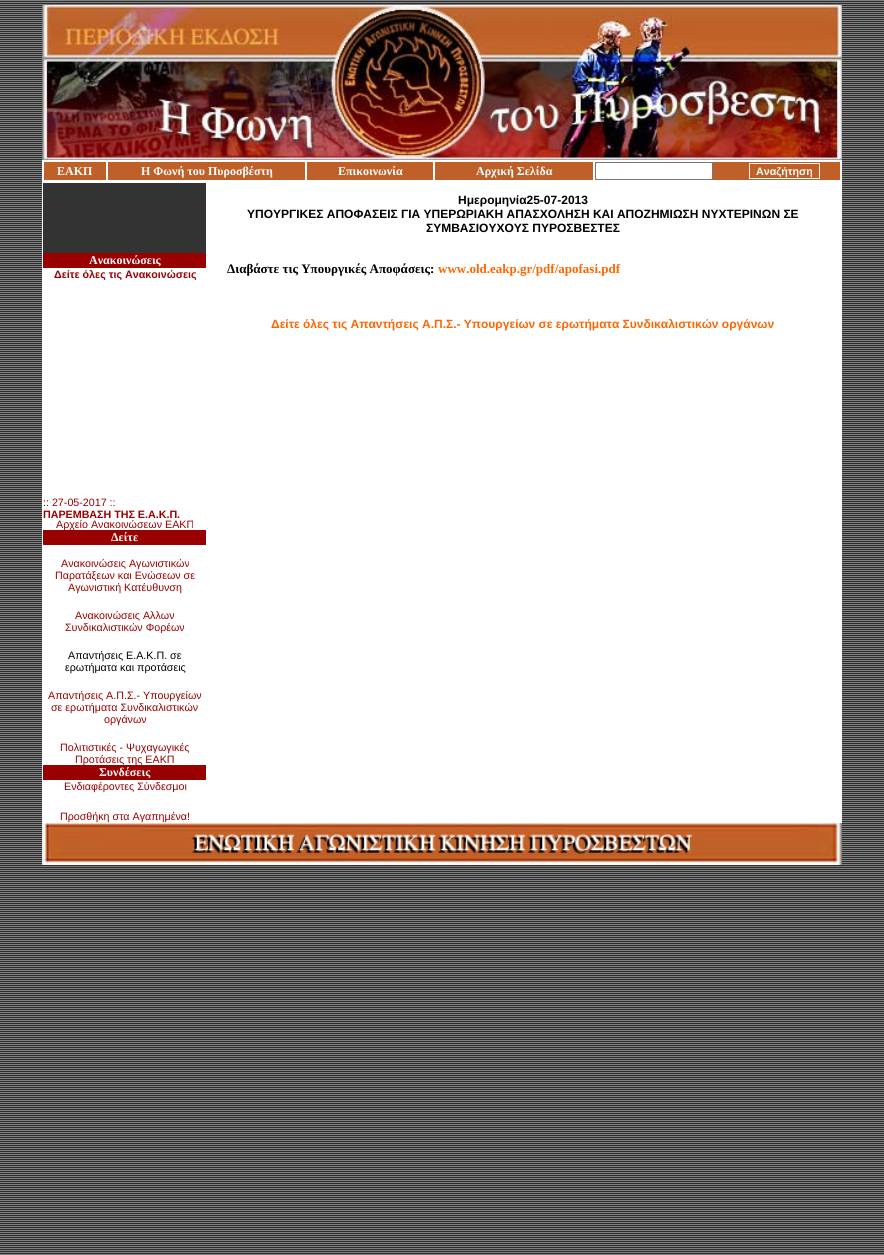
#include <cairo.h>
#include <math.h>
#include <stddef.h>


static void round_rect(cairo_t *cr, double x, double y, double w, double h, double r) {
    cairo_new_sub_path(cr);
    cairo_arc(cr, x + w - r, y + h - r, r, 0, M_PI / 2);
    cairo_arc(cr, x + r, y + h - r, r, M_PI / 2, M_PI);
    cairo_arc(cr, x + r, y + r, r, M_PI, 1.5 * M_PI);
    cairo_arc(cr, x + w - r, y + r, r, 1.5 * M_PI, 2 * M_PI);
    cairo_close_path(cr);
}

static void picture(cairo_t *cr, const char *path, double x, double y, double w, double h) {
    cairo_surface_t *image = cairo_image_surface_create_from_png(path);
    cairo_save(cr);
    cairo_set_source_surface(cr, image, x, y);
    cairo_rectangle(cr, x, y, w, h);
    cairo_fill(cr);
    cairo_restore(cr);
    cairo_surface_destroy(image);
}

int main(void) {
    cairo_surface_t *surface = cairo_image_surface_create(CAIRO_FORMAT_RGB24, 884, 1255);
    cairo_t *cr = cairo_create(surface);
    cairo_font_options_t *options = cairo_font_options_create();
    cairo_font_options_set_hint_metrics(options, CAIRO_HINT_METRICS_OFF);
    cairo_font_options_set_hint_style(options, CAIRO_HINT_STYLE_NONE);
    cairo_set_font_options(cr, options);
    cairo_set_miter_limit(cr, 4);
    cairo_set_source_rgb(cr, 1, 1, 1);
    cairo_paint(cr);
    picture(cr, "img1.png", 0, 0, 884, 1255);
    picture(cr, "img2.png", 42, 5, 800, 155);
    cairo_set_source_rgb(cr, 1, 1, 1);
    cairo_rectangle(cr, 42, 160, 800, 663);
    cairo_fill(cr);
    cairo_set_source_rgb(cr, 0.749, 0.376, 0.157);
    cairo_rectangle(cr, 44, 162, 796, 18);
    cairo_fill(cr);
    cairo_rectangle(cr, 43.5, 161.5, 63, 19);
    cairo_set_source_rgb(cr, 1, 1, 1);
    cairo_set_line_width(cr, 1);
    cairo_stroke(cr);
    cairo_select_font_face(cr, "Liberation Serif", CAIRO_FONT_SLANT_NORMAL, CAIRO_FONT_WEIGHT_BOLD);
    cairo_set_font_size(cr, 12);
    cairo_move_to(cr, 57, 175);
    cairo_show_text(cr, "ΕΑΚΠ");
    cairo_rectangle(cr, 107.5, 161.5, 198, 19);
    cairo_stroke(cr);
    cairo_move_to(cr, 141, 175);
    cairo_show_text(cr, "Η Φωνή του Πυροσβέστη");
    cairo_rectangle(cr, 306.5, 161.5, 127, 19);
    cairo_stroke(cr);
    cairo_move_to(cr, 338, 175);
    cairo_show_text(cr, "Επικοινωνία");
    cairo_rectangle(cr, 434.5, 161.5, 159, 19);
    cairo_stroke(cr);
    cairo_move_to(cr, 476, 175);
    cairo_show_text(cr, "Αρχική Σελίδα");
    cairo_rectangle(cr, 594.5, 161.5, 246, 19);
    cairo_stroke(cr);
    round_rect(cr, 595.5, 162.5, 117, 17, 1.5);
    cairo_fill_preserve(cr);
    cairo_set_source_rgb(cr, 0.463, 0.463, 0.463);
    cairo_stroke(cr);
    cairo_rectangle(cr, 749.5, 163.5, 70, 15);
    cairo_set_source_rgb(cr, 1, 1, 1);
    cairo_stroke(cr);
    cairo_select_font_face(cr, "Liberation Sans", CAIRO_FONT_SLANT_NORMAL, CAIRO_FONT_WEIGHT_BOLD);
    cairo_set_font_size(cr, 10.7);
    cairo_move_to(cr, 756, 175);
    cairo_show_text(cr, "Αναζήτηση");
    cairo_set_source_rgb(cr, 0.2, 0.2, 0.2);
    cairo_rectangle(cr, 43, 183, 163, 70);
    cairo_fill(cr);
    cairo_set_source_rgb(cr, 0.6, 0, 0);
    cairo_rectangle(cr, 43, 253, 163, 15);
    cairo_fill(cr);
    cairo_select_font_face(cr, "Liberation Serif", CAIRO_FONT_SLANT_NORMAL, CAIRO_FONT_WEIGHT_BOLD);
    cairo_set_font_size(cr, 12);
    cairo_set_source_rgb(cr, 1, 1, 1);
    cairo_move_to(cr, 89, 264);
    cairo_show_text(cr, "Ανακοινώσεις");
    cairo_select_font_face(cr, "Liberation Sans", CAIRO_FONT_SLANT_NORMAL, CAIRO_FONT_WEIGHT_BOLD);
    cairo_set_font_size(cr, 10.7);
    cairo_set_source_rgb(cr, 0.6, 0, 0);
    cairo_move_to(cr, 54, 278);
    cairo_show_text(cr, "Δείτε όλες τις Ανακοινώσεις");
    cairo_select_font_face(cr, "Liberation Sans", CAIRO_FONT_SLANT_NORMAL, CAIRO_FONT_WEIGHT_NORMAL);
    cairo_move_to(cr, 43, 506);
    cairo_show_text(cr, ":: 27-05-2017 ::");
    cairo_select_font_face(cr, "Liberation Sans", CAIRO_FONT_SLANT_NORMAL, CAIRO_FONT_WEIGHT_BOLD);
    cairo_move_to(cr, 43, 518);
    cairo_show_text(cr, "ΠΑΡΕΜΒΑΣΗ ΤΗΣ Ε.Α.Κ.Π.");
    cairo_rectangle(cr, 43, 530, 163, 15);
    cairo_fill(cr);
    cairo_select_font_face(cr, "Liberation Sans", CAIRO_FONT_SLANT_NORMAL, CAIRO_FONT_WEIGHT_NORMAL);
    cairo_move_to(cr, 56, 528);
    cairo_show_text(cr, "Αρχείο Ανακοινώσεων ΕΑΚΠ");
    cairo_select_font_face(cr, "Liberation Serif", CAIRO_FONT_SLANT_NORMAL, CAIRO_FONT_WEIGHT_BOLD);
    cairo_set_font_size(cr, 12);
    cairo_set_source_rgb(cr, 1, 1, 1);
    cairo_move_to(cr, 111, 541);
    cairo_show_text(cr, "Δείτε");
    cairo_select_font_face(cr, "Liberation Sans", CAIRO_FONT_SLANT_NORMAL, CAIRO_FONT_WEIGHT_NORMAL);
    cairo_set_font_size(cr, 10.7);
    cairo_set_source_rgb(cr, 0.6, 0, 0);
    cairo_move_to(cr, 61, 567);
    cairo_show_text(cr, "Ανακοινώσεις Αγωνιστικών");
    cairo_move_to(cr, 55, 579);
    cairo_show_text(cr, "Παρατάξεων και Ενώσεων σε");
    cairo_move_to(cr, 68, 591);
    cairo_show_text(cr, "Αγωνιστική Κατέυθυνση");
    cairo_move_to(cr, 75, 619);
    cairo_show_text(cr, "Ανακοινώσεις Αλλων");
    cairo_move_to(cr, 65, 631);
    cairo_show_text(cr, "Συνδικαλιστικών Φορέων");
    cairo_set_source_rgb(cr, 0, 0, 0);
    cairo_move_to(cr, 68, 659);
    cairo_show_text(cr, "Απαντήσεις Ε.Α.Κ.Π. σε");
    cairo_move_to(cr, 65, 671);
    cairo_show_text(cr, "ερωτήματα και προτάσεις");
    cairo_set_source_rgb(cr, 0.6, 0, 0);
    cairo_move_to(cr, 48, 699);
    cairo_show_text(cr, "Απαντήσεις Α.Π.Σ.- Υπουργείων");
    cairo_move_to(cr, 51, 711);
    cairo_show_text(cr, "σε ερωτήματα Συνδικαλιστικών");
    cairo_move_to(cr, 104, 723);
    cairo_show_text(cr, "οργάνων");
    cairo_move_to(cr, 60, 751);
    cairo_show_text(cr, "Πολιτιστικές - Ψυχαγωγικές");
    cairo_rectangle(cr, 43, 765, 163, 15);
    cairo_fill(cr);
    cairo_move_to(cr, 75, 763);
    cairo_show_text(cr, "Προτάσεις της ΕΑΚΠ");
    cairo_select_font_face(cr, "Liberation Serif", CAIRO_FONT_SLANT_NORMAL, CAIRO_FONT_WEIGHT_BOLD);
    cairo_set_font_size(cr, 12);
    cairo_set_source_rgb(cr, 1, 1, 1);
    cairo_move_to(cr, 99, 776);
    cairo_show_text(cr, "Συνδέσεις");
    cairo_select_font_face(cr, "Liberation Sans", CAIRO_FONT_SLANT_NORMAL, CAIRO_FONT_WEIGHT_NORMAL);
    cairo_set_font_size(cr, 10.7);
    cairo_set_source_rgb(cr, 0.6, 0, 0);
    cairo_move_to(cr, 64, 790);
    cairo_show_text(cr, "Ενδιαφέροντες Σύνδεσμοι");
    cairo_move_to(cr, 60, 820);
    cairo_show_text(cr, "Προσθήκη στα Αγαπημένα!");
    cairo_select_font_face(cr, "Liberation Sans", CAIRO_FONT_SLANT_NORMAL, CAIRO_FONT_WEIGHT_BOLD);
    cairo_set_font_size(cr, 12);
    cairo_set_source_rgb(cr, 0, 0, 0);
    cairo_move_to(cr, 458, 204);
    cairo_show_text(cr, "Ημερομηνία25-07-2013");
    cairo_move_to(cr, 247, 218);
    cairo_show_text(cr, "ΥΠΟΥΡΓΙΚΕΣ ΑΠΟΦΑΣΕΙΣ ΓΙΑ ΥΠΕΡΩΡΙΑΚΗ ΑΠΑΣΧΟΛΗΣΗ ΚΑΙ ΑΠΟΖΗΜΙΩΣΗ ΝΥΧΤΕΡΙΝΩΝ ΣΕ");
    cairo_move_to(cr, 426, 232);
    cairo_show_text(cr, "ΣΥΜΒΑΣΙΟΥΧΟΥΣ ΠΥΡΟΣΒΕΣΤΕΣ");
    cairo_select_font_face(cr, "Liberation Serif", CAIRO_FONT_SLANT_NORMAL, CAIRO_FONT_WEIGHT_BOLD);
    cairo_set_font_size(cr, 13);
    cairo_move_to(cr, 227, 273);
    cairo_show_text(cr, "Διαβάστε τις Υπουργικές Αποφάσεις:");
    cairo_set_source_rgb(cr, 1, 0.4, 0);
    cairo_move_to(cr, 438, 273);
    cairo_show_text(cr, "www.old.eakp.gr/pdf/apofasi.pdf");
    cairo_select_font_face(cr, "Liberation Sans", CAIRO_FONT_SLANT_NORMAL, CAIRO_FONT_WEIGHT_BOLD);
    cairo_set_font_size(cr, 12);
    cairo_move_to(cr, 271, 328);
    cairo_show_text(cr, "Δείτε όλες τις Απαντήσεις Α.Π.Σ.- Υπουργείων σε ερωτήματα Συνδικαλιστικών οργάνων");
    picture(cr, "img3.png", 42, 823, 800, 42);
    cairo_surface_write_to_png(surface, "page.png");
    cairo_font_options_destroy(options);
    cairo_destroy(cr);
    cairo_surface_destroy(surface);
    return 0;
}
